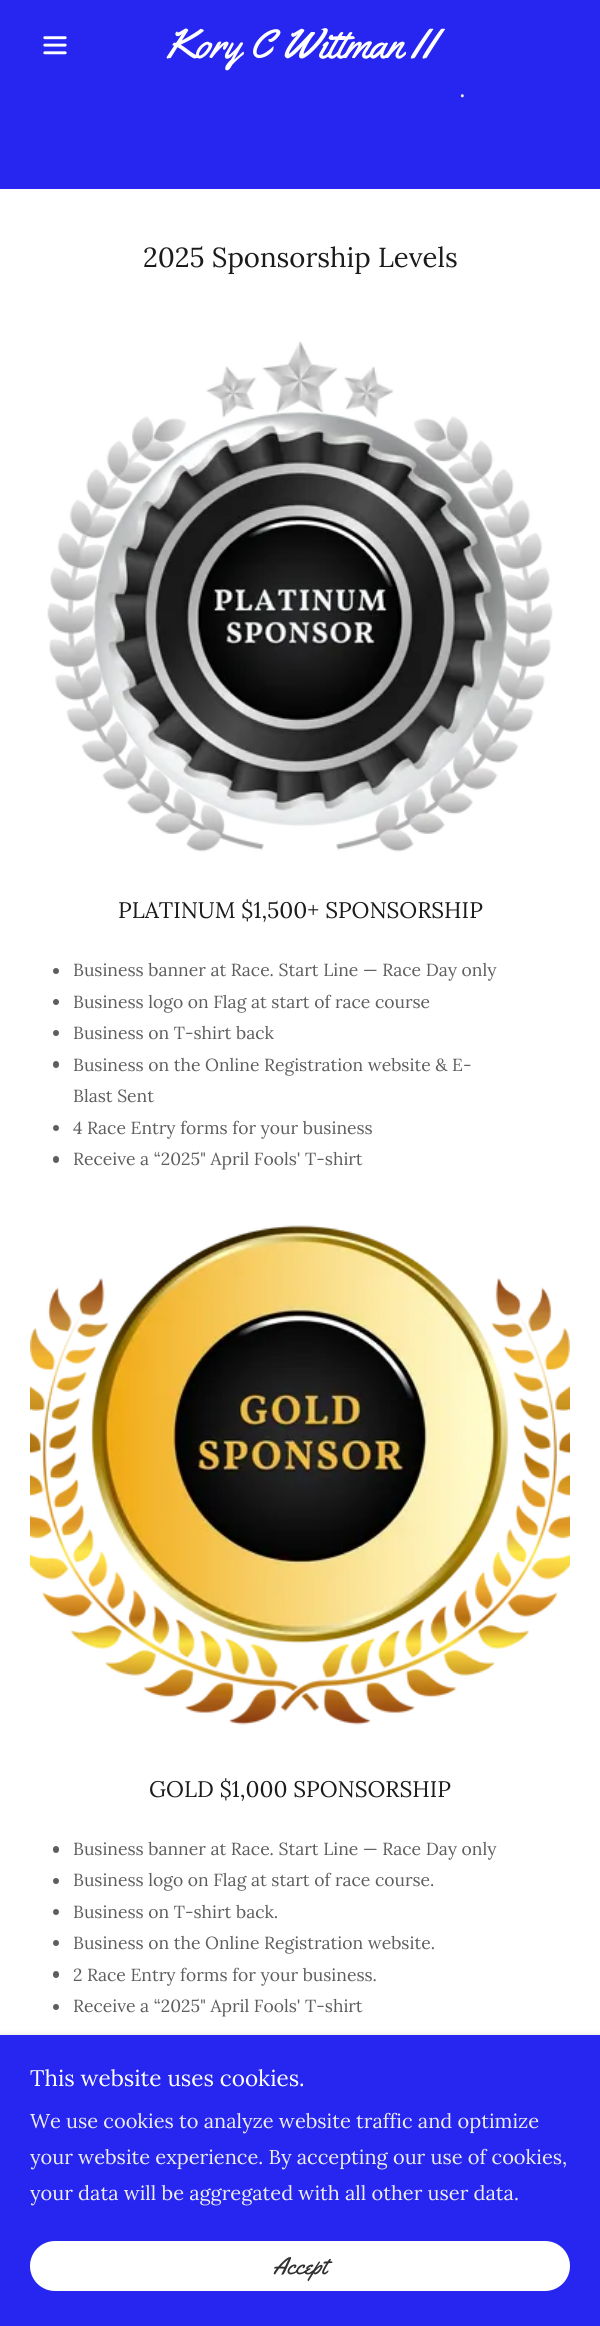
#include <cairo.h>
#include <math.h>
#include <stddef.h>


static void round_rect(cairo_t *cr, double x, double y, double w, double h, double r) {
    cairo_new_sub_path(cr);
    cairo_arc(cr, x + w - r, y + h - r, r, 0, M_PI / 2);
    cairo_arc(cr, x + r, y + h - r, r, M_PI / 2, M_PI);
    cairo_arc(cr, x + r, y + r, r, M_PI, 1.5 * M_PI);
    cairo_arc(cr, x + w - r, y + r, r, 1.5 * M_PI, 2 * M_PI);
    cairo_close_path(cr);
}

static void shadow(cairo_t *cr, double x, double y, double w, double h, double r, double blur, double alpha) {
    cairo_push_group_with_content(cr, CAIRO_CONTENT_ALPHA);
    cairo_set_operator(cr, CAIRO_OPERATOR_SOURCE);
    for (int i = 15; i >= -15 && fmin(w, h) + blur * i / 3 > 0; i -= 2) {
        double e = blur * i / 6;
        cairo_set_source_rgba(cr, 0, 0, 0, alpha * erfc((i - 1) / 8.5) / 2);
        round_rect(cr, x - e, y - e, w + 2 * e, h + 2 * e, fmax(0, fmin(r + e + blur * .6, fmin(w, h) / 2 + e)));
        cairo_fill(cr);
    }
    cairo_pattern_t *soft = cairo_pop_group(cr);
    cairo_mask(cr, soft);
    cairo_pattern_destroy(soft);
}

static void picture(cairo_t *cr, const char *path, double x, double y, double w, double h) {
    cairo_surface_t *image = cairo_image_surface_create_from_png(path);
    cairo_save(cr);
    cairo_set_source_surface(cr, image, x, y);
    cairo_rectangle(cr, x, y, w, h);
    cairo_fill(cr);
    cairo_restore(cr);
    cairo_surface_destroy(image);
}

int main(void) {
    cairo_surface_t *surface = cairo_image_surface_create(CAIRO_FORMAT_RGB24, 600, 2326);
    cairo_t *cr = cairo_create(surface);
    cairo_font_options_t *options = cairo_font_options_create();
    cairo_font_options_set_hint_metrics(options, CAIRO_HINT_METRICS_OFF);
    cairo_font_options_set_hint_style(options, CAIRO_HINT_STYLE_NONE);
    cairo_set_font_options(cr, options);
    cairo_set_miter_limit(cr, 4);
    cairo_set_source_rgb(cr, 1, 1, 1);
    cairo_paint(cr);
    cairo_set_source_rgb(cr, 0.149, 0.149, 0.941);
    cairo_rectangle(cr, 0, 0, 600, 189);
    cairo_fill(cr);
    picture(cr, "img1.png", 43, 36, 24, 19);
    cairo_select_font_face(cr, "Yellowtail", CAIRO_FONT_SLANT_NORMAL, CAIRO_FONT_WEIGHT_NORMAL);
    cairo_set_font_size(cr, 41.25);
    cairo_set_source_rgb(cr, 1, 1, 1);
    cairo_move_to(cr, 166, 58);
    cairo_show_text(cr, "Kory C Wittman II");
    cairo_select_font_face(cr, "Lora", CAIRO_FONT_SLANT_NORMAL, CAIRO_FONT_WEIGHT_BOLD);
    cairo_set_font_size(cr, 20);
    cairo_set_source_rgb(cr, 0.933, 0.933, 0.941);
    cairo_move_to(cr, 460, 97);
    cairo_show_text(cr, ".");
    cairo_select_font_face(cr, "Lora", CAIRO_FONT_SLANT_NORMAL, CAIRO_FONT_WEIGHT_NORMAL);
    cairo_set_font_size(cr, 27.5);
    cairo_set_source_rgb(cr, 0.106, 0.106, 0.106);
    cairo_move_to(cr, 143, 267);
    cairo_show_text(cr, "2025 Sponsorship Levels");
    picture(cr, "img2.png", 47, 341, 506, 511);
    cairo_set_font_size(cr, 22.5);
    cairo_move_to(cr, 118, 918);
    cairo_show_text(cr, "PLATINUM $1,500+ SPONSORSHIP");
    cairo_set_source_rgb(cr, 0.369, 0.369, 0.369);
    cairo_new_path(cr);
    cairo_arc(cr, 56, 971, 3, 0, 2 * M_PI);
    cairo_fill(cr);
    cairo_set_font_size(cr, 17.5);
    cairo_move_to(cr, 73, 976);
    cairo_show_text(cr, "Business banner at Race. Start Line — Race Day only");
    cairo_new_path(cr);
    cairo_arc(cr, 56, 1002, 3, 0, 2 * M_PI);
    cairo_fill(cr);
    cairo_move_to(cr, 73, 1008);
    cairo_show_text(cr, "Business logo on Flag at start of race course");
    cairo_new_path(cr);
    cairo_arc(cr, 56, 1033, 3, 0, 2 * M_PI);
    cairo_fill(cr);
    cairo_move_to(cr, 73, 1039);
    cairo_show_text(cr, "Business on T-shirt back");
    round_rect(cr, 53, 1061, 6, 7, 3);
    cairo_fill(cr);
    cairo_move_to(cr, 73, 1071);
    cairo_show_text(cr, "Business on the Online Registration website & E-");
    cairo_move_to(cr, 73, 1102);
    cairo_show_text(cr, "Blast Sent");
    cairo_new_path(cr);
    cairo_arc(cr, 56, 1128, 3, 0, 2 * M_PI);
    cairo_fill(cr);
    cairo_move_to(cr, 73, 1134);
    cairo_show_text(cr, "4 Race Entry forms for your business");
    round_rect(cr, 53, 1156, 6, 7, 3);
    cairo_fill(cr);
    cairo_move_to(cr, 73, 1165);
    cairo_show_text(cr, "Receive a “2025\" April Fools' T-shirt");
    picture(cr, "img3.png", 30, 1225, 540, 500);
    cairo_set_font_size(cr, 22.5);
    cairo_set_source_rgb(cr, 0.106, 0.106, 0.106);
    cairo_move_to(cr, 149, 1797);
    cairo_show_text(cr, "GOLD $1,000 SPONSORSHIP");
    cairo_set_source_rgb(cr, 0.369, 0.369, 0.369);
    round_rect(cr, 53, 1846, 6, 7, 3);
    cairo_fill(cr);
    cairo_set_font_size(cr, 17.5);
    cairo_move_to(cr, 73, 1855);
    cairo_show_text(cr, "Business banner at Race. Start Line — Race Day only");
    cairo_new_path(cr);
    cairo_arc(cr, 56, 1881, 3, 0, 2 * M_PI);
    cairo_fill(cr);
    cairo_move_to(cr, 73, 1886);
    cairo_show_text(cr, "Business logo on Flag at start of race course.");
    cairo_new_path(cr);
    cairo_arc(cr, 56, 1912, 3, 0, 2 * M_PI);
    cairo_fill(cr);
    cairo_move_to(cr, 73, 1918);
    cairo_show_text(cr, "Business on T-shirt back.");
    cairo_new_path(cr);
    cairo_arc(cr, 56, 1943, 3, 0, 2 * M_PI);
    cairo_fill(cr);
    cairo_move_to(cr, 73, 1949);
    cairo_show_text(cr, "Business on the Online Registration website.");
    round_rect(cr, 53, 1971, 6, 7, 3);
    cairo_fill(cr);
    cairo_move_to(cr, 73, 1981);
    cairo_show_text(cr, "2 Race Entry forms for your business.");
    cairo_new_path(cr);
    cairo_arc(cr, 56, 2007, 3, 0, 2 * M_PI);
    cairo_fill(cr);
    cairo_move_to(cr, 73, 2012);
    cairo_show_text(cr, "Receive a “2025\" April Fools' T-shirt");
    cairo_set_source_rgb(cr, 0, 0, 0);
    shadow(cr, 0, 2038, 600, 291, 0, 4, 0.3);
    cairo_set_source_rgb(cr, 0.149, 0.149, 0.941);
    cairo_rectangle(cr, 0, 2035, 600, 291);
    cairo_fill(cr);
    cairo_set_font_size(cr, 22.5);
    cairo_set_source_rgb(cr, 1, 1, 1);
    cairo_move_to(cr, 30, 2086);
    cairo_show_text(cr, "This website uses cookies.");
    cairo_set_font_size(cr, 20);
    cairo_set_source_rgb(cr, 0.933, 0.933, 0.941);
    cairo_move_to(cr, 30, 2128);
    cairo_show_text(cr, "We use cookies to analyze website traffic and optimize");
    cairo_move_to(cr, 30, 2164);
    cairo_show_text(cr, "your website experience. By accepting our use of cookies,");
    cairo_move_to(cr, 30, 2200);
    cairo_show_text(cr, "your data will be aggregated with all other user data.");
    cairo_set_source_rgb(cr, 1, 1, 1);
    round_rect(cr, 30, 2241, 540, 50, 25);
    cairo_fill(cr);
    cairo_select_font_face(cr, "Yellowtail", CAIRO_FONT_SLANT_NORMAL, CAIRO_FONT_WEIGHT_NORMAL);
    cairo_set_font_size(cr, 24);
    cairo_set_source_rgb(cr, 0.188, 0.188, 0.188);
    cairo_move_to(cr, 273, 2274);
    cairo_show_text(cr, "Accept");
    cairo_surface_write_to_png(surface, "page.png");
    cairo_font_options_destroy(options);
    cairo_destroy(cr);
    cairo_surface_destroy(surface);
    return 0;
}
